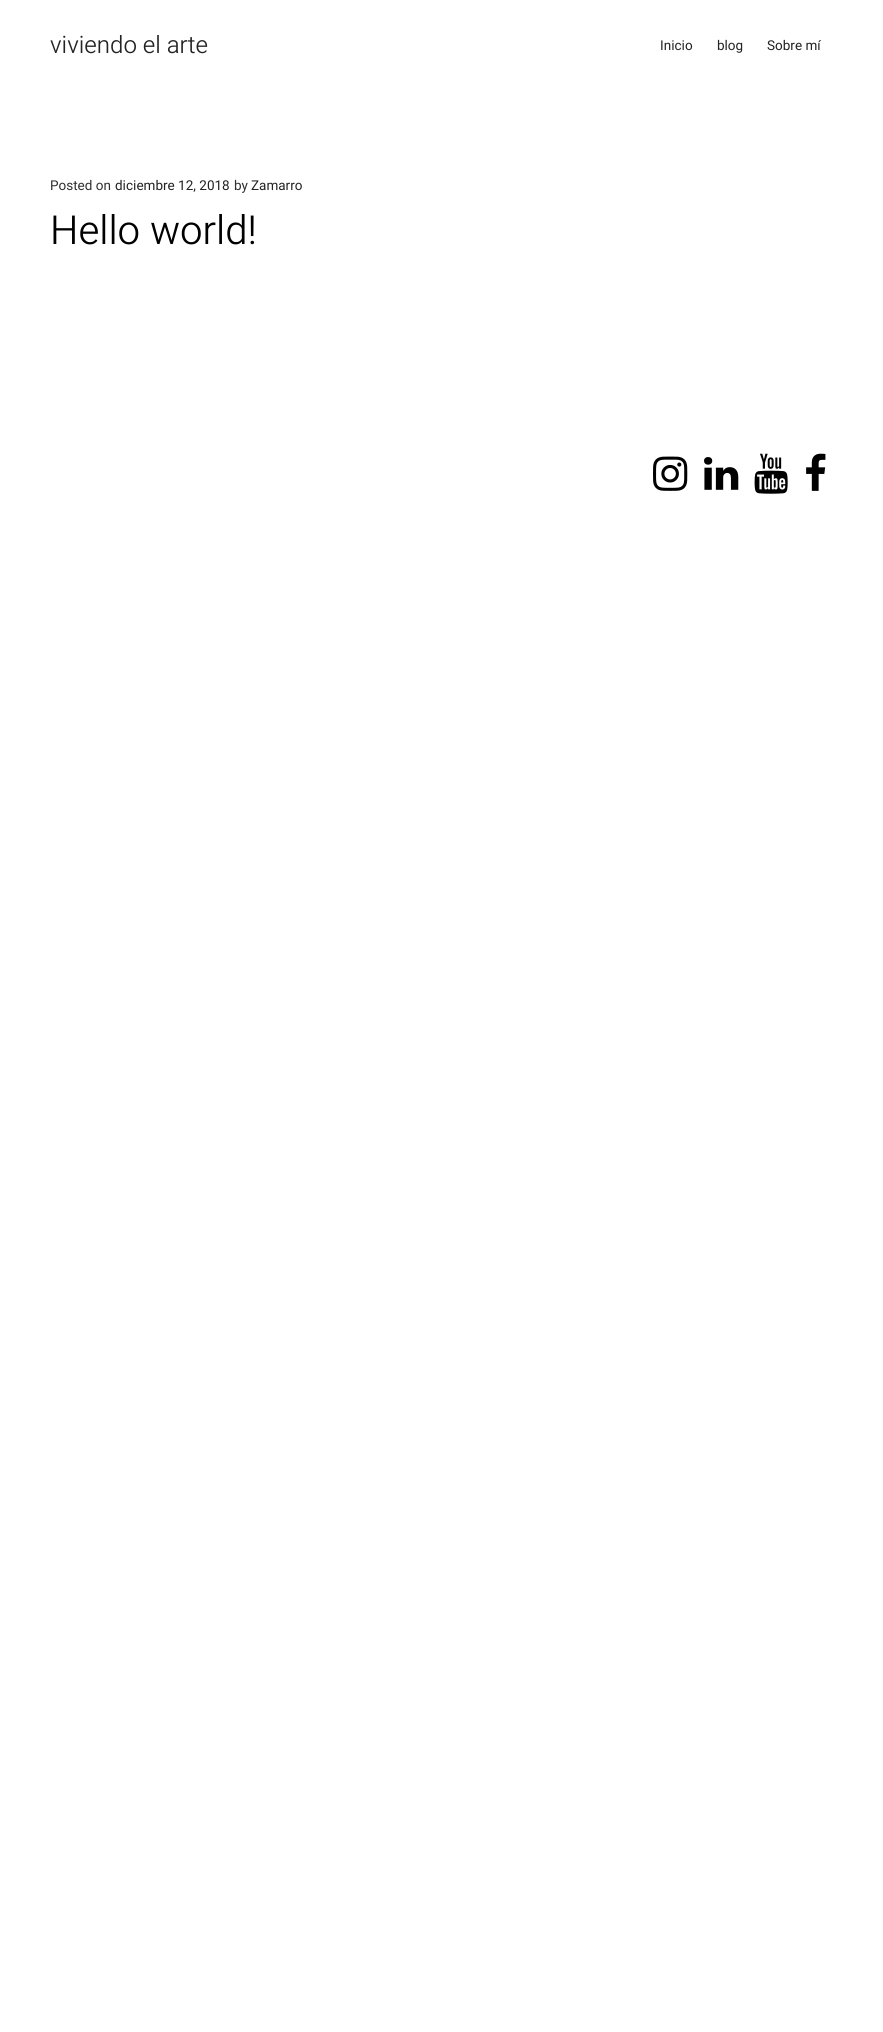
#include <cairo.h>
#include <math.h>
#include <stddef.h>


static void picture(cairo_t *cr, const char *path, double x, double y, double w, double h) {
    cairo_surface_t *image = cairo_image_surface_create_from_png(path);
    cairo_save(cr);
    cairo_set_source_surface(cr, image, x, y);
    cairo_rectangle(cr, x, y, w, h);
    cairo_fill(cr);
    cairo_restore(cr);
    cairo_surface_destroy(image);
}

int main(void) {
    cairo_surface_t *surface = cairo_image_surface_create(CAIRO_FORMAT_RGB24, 883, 2032);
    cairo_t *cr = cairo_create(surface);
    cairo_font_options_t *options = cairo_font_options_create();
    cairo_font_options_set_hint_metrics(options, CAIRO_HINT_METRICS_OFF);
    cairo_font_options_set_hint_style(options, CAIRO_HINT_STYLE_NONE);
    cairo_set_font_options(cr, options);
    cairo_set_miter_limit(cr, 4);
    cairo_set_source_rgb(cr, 1, 1, 1);
    cairo_paint(cr);
    cairo_select_font_face(cr, "Heebo Light", CAIRO_FONT_SLANT_NORMAL, CAIRO_FONT_WEIGHT_NORMAL);
    cairo_set_font_size(cr, 24);
    cairo_set_source_rgb(cr, 0.137, 0.137, 0.137);
    cairo_move_to(cr, 50, 53);
    cairo_show_text(cr, "viviendo el arte");
    cairo_select_font_face(cr, "Heebo", CAIRO_FONT_SLANT_NORMAL, CAIRO_FONT_WEIGHT_NORMAL);
    cairo_set_font_size(cr, 13.5);
    cairo_move_to(cr, 660, 50);
    cairo_show_text(cr, "Inicio");
    cairo_move_to(cr, 717, 50);
    cairo_show_text(cr, "blog");
    cairo_move_to(cr, 767, 50);
    cairo_show_text(cr, "Sobre mí");
    cairo_set_source_rgb(cr, 0.188, 0.188, 0.188);
    cairo_move_to(cr, 50, 190);
    cairo_show_text(cr, "Posted on");
    cairo_set_source_rgb(cr, 0.137, 0.137, 0.137);
    cairo_move_to(cr, 115, 190);
    cairo_show_text(cr, "diciembre 12, 2018");
    cairo_set_source_rgb(cr, 0.188, 0.188, 0.188);
    cairo_move_to(cr, 234, 190);
    cairo_show_text(cr, "by");
    cairo_set_source_rgb(cr, 0.137, 0.137, 0.137);
    cairo_move_to(cr, 251, 190);
    cairo_show_text(cr, "Zamarro");
    cairo_select_font_face(cr, "Heebo Light", CAIRO_FONT_SLANT_NORMAL, CAIRO_FONT_WEIGHT_NORMAL);
    cairo_set_font_size(cr, 40);
    cairo_set_source_rgb(cr, 0, 0, 0);
    cairo_move_to(cr, 50, 244);
    cairo_show_text(cr, "Hello world!");
    picture(cr, "img1.png", 653, 456, 35, 35);
    picture(cr, "img2.png", 704, 457, 35, 33);
    picture(cr, "img3.png", 754, 453, 34, 41);
    picture(cr, "img4.png", 806, 453, 20, 38);
    cairo_surface_write_to_png(surface, "page.png");
    cairo_font_options_destroy(options);
    cairo_destroy(cr);
    cairo_surface_destroy(surface);
    return 0;
}
